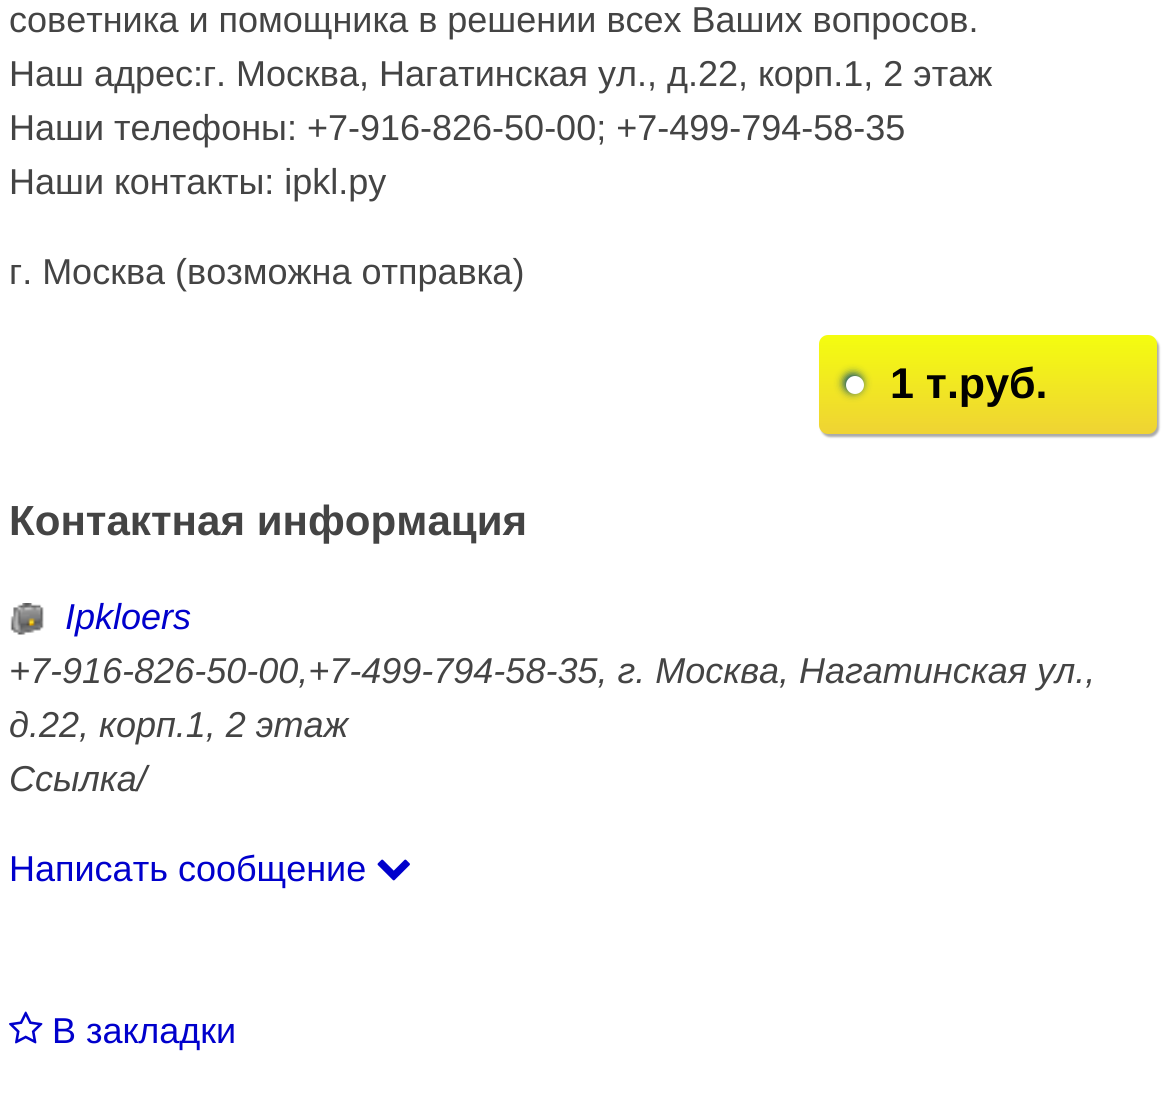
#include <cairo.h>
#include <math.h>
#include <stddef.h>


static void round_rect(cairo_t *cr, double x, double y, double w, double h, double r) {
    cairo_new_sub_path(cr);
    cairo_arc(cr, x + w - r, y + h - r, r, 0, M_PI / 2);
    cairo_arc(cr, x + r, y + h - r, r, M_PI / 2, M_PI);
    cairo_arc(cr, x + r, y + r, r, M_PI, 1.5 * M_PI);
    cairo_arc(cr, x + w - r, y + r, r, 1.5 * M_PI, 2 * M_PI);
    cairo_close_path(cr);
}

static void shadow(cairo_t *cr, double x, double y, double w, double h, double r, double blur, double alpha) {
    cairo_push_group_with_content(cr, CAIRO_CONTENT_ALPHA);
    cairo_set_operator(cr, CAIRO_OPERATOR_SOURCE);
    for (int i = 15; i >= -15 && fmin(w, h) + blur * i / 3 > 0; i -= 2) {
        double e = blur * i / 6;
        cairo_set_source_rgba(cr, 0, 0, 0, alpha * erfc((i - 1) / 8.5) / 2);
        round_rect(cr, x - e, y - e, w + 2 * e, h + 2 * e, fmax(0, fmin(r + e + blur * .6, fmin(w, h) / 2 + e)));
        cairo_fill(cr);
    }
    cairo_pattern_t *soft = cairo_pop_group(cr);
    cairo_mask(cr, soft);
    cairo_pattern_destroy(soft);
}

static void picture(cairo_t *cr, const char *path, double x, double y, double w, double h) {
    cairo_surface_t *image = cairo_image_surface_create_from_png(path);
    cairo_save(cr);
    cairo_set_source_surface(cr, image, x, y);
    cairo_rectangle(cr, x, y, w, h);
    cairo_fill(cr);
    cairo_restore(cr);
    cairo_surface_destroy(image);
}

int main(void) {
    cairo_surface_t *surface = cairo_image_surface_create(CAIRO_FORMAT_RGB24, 1165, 1103);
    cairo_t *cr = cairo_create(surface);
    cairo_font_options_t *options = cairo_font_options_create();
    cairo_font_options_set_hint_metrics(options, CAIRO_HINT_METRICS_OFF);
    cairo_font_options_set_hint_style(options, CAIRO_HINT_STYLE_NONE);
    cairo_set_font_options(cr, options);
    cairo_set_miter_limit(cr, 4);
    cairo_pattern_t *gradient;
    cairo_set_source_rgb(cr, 1, 1, 1);
    cairo_paint(cr);
    cairo_select_font_face(cr, "Liberation Sans", CAIRO_FONT_SLANT_NORMAL, CAIRO_FONT_WEIGHT_NORMAL);
    cairo_set_font_size(cr, 36);
    cairo_set_source_rgb(cr, 0.267, 0.267, 0.267);
    cairo_move_to(cr, 9, 32);
    cairo_show_text(cr, "советника и помощника в решении всех Ваших вопросов.");
    cairo_move_to(cr, 9, 86);
    cairo_show_text(cr, "Наш адрес:г. Москва, Нагатинская ул., д.22, корп.1, 2 этаж");
    cairo_move_to(cr, 9, 140);
    cairo_show_text(cr, "Наши телефоны: +7-916-826-50-00; +7-499-794-58-35");
    cairo_move_to(cr, 9, 194);
    cairo_show_text(cr, "Наши контакты: ipkl.ру");
    cairo_move_to(cr, 9, 284);
    cairo_show_text(cr, "г. Москва (возможна отправка)");
    cairo_set_source_rgb(cr, 0.667, 0.667, 0.667);
    shadow(cr, 821, 338, 338, 99, 9, 1, 1);
    gradient = cairo_pattern_create_linear(819, 335, 819, 434);
    cairo_pattern_add_color_stop_rgba(gradient, 0, 0.957, 0.992, 0.059, 1);
    cairo_pattern_add_color_stop_rgba(gradient, 1, 0.937, 0.827, 0.204, 1);
    cairo_set_source(cr, gradient);
    cairo_pattern_destroy(gradient);
    round_rect(cr, 819, 335, 338, 99, 9);
    cairo_fill(cr);
    cairo_set_source_rgb(cr, 0, 0.286, 0.467);
    shadow(cr, 844, 374, 18, 18, 9, 4.5, 1);
    cairo_set_source_rgb(cr, 1, 1, 1);
    cairo_arc(cr, 855, 385, 9, 0, 2 * M_PI);
    cairo_fill(cr);
    cairo_select_font_face(cr, "Liberation Sans", CAIRO_FONT_SLANT_NORMAL, CAIRO_FONT_WEIGHT_BOLD);
    cairo_set_font_size(cr, 43);
    cairo_set_source_rgb(cr, 0, 0, 0);
    cairo_move_to(cr, 890, 398);
    cairo_show_text(cr, "1 т.руб.");
    cairo_set_font_size(cr, 42.1);
    cairo_set_source_rgb(cr, 0.267, 0.267, 0.267);
    cairo_move_to(cr, 9, 535);
    cairo_show_text(cr, "Контактная информация");
    picture(cr, "img1.png", 10, 603, 34, 32);
    cairo_select_font_face(cr, "Liberation Sans", CAIRO_FONT_SLANT_ITALIC, CAIRO_FONT_WEIGHT_NORMAL);
    cairo_set_font_size(cr, 36);
    cairo_set_source_rgb(cr, 0, 0, 0.8);
    cairo_move_to(cr, 65, 629);
    cairo_show_text(cr, "Ipkloers");
    cairo_set_source_rgb(cr, 0.267, 0.267, 0.267);
    cairo_move_to(cr, 9, 683);
    cairo_show_text(cr, "+7-916-826-50-00,+7-499-794-58-35, г. Москва, Нагатинская ул.,");
    cairo_move_to(cr, 9, 737);
    cairo_show_text(cr, "д.22, корп.1, 2 этаж");
    cairo_move_to(cr, 9, 791);
    cairo_show_text(cr, "Ссылка/");
    cairo_select_font_face(cr, "Liberation Sans", CAIRO_FONT_SLANT_NORMAL, CAIRO_FONT_WEIGHT_NORMAL);
    cairo_set_source_rgb(cr, 0, 0, 0.8);
    cairo_move_to(cr, 9, 881);
    cairo_show_text(cr, "Написать сообщение");
    picture(cr, "img2.png", 377, 859, 33, 22);
    picture(cr, "img3.png", 9, 1011, 34, 33);
    cairo_move_to(cr, 52, 1043);
    cairo_show_text(cr, "В закладки");
    cairo_surface_write_to_png(surface, "page.png");
    cairo_font_options_destroy(options);
    cairo_destroy(cr);
    cairo_surface_destroy(surface);
    return 0;
}
